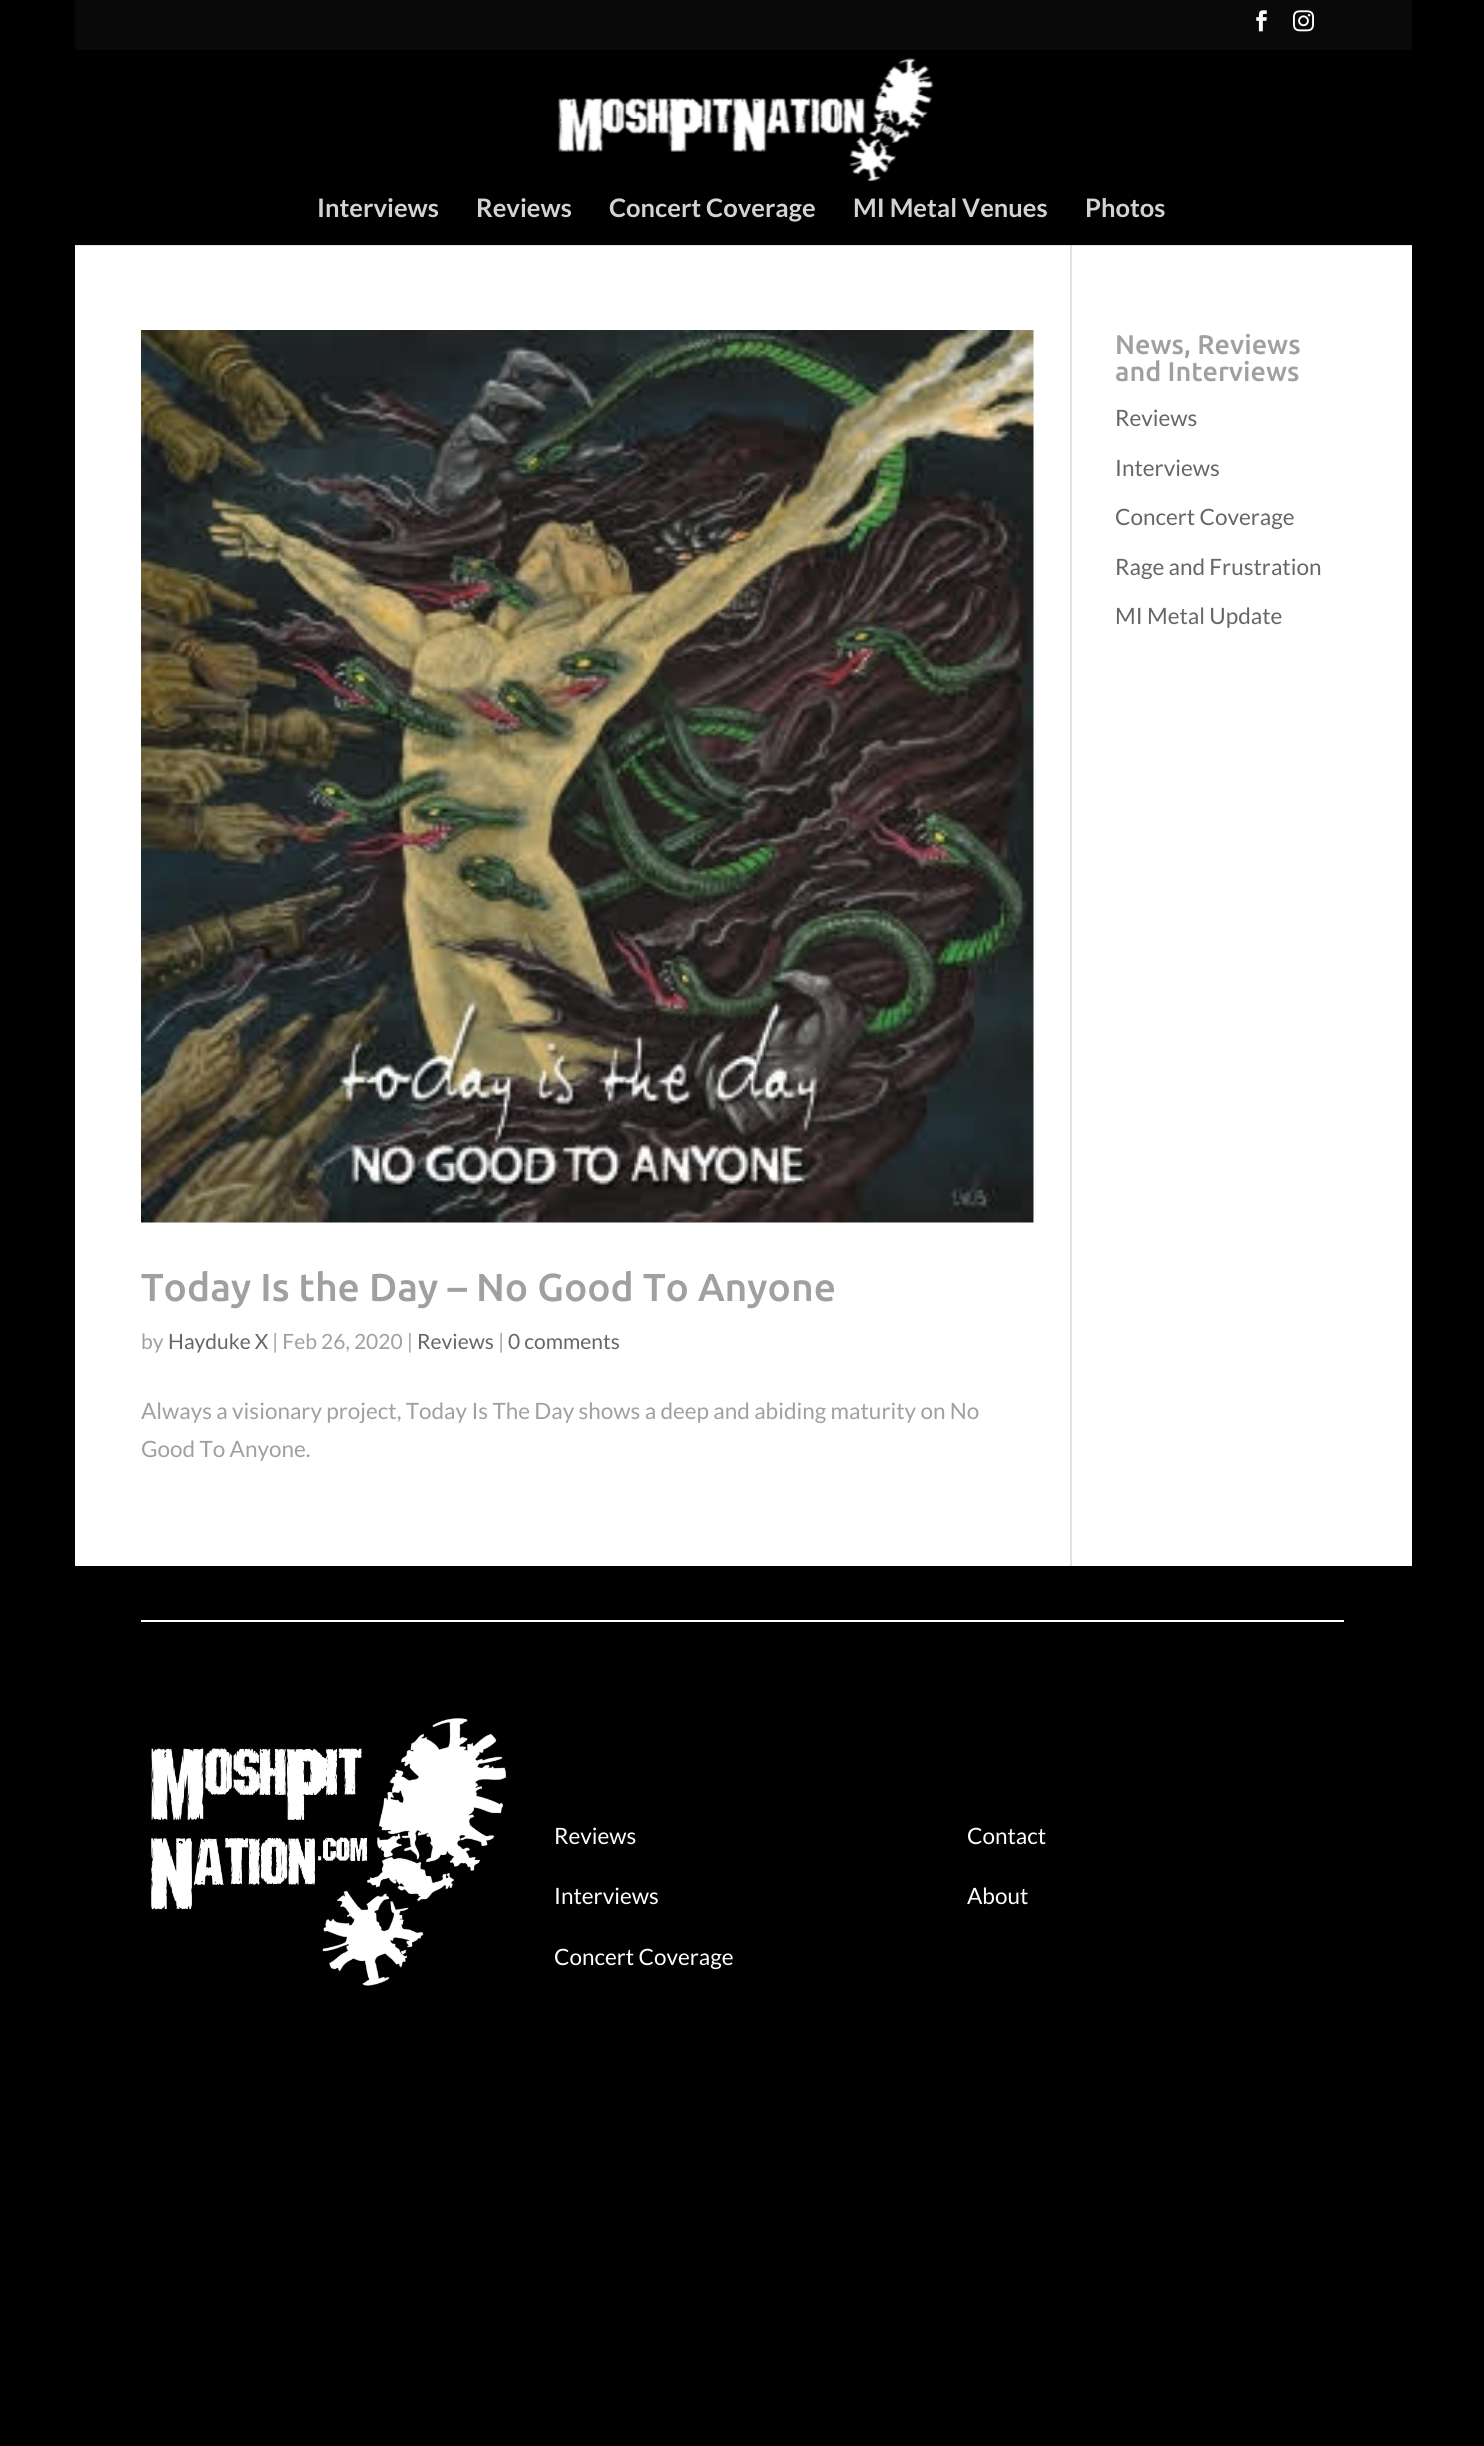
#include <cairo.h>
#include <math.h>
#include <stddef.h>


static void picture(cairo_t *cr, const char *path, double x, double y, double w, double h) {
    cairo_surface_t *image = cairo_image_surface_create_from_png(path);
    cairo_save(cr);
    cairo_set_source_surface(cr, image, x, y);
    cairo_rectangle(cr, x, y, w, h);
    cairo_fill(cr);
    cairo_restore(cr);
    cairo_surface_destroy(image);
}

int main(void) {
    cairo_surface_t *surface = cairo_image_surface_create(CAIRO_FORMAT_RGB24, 1484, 2446);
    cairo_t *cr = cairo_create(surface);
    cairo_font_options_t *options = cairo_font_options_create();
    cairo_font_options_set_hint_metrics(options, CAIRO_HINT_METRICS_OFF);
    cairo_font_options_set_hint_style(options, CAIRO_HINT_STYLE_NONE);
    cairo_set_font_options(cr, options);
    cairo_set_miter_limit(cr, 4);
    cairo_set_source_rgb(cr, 0, 0, 0);
    cairo_paint(cr);
    cairo_set_source_rgb(cr, 0.039, 0.039, 0.039);
    cairo_rectangle(cr, 75, 0, 1337, 50);
    cairo_fill(cr);
    picture(cr, "img1.png", 1256, 10, 11, 22);
    picture(cr, "img2.png", 1293, 10, 21, 22);
    cairo_set_source_rgb(cr, 1, 1, 1);
    cairo_rectangle(cr, 75, 245, 1337, 1321);
    cairo_fill(cr);
    cairo_set_source_rgb(cr, 0.886, 0.886, 0.886);
    cairo_rectangle(cr, 1070, 243, 2, 1323);
    cairo_fill(cr);
    cairo_set_source_rgba(cr, 0, 0, 0, 0.1);
    cairo_new_path(cr);
    cairo_move_to(cr, 75, 244);
    cairo_line_to(cr, 75, 246);
    cairo_line_to(cr, 1412, 246);
    cairo_line_to(cr, 1412, 51);
    cairo_line_to(cr, 1412, 244);
    cairo_close_path(cr);
    cairo_fill(cr);
    cairo_set_source_rgb(cr, 0, 0, 0);
    cairo_rectangle(cr, 1070, 243, 2, 2);
    cairo_fill(cr);
    picture(cr, "img3.png", 558, 58, 376, 124);
    cairo_select_font_face(cr, "Lato", CAIRO_FONT_SLANT_NORMAL, CAIRO_FONT_WEIGHT_BOLD);
    cairo_set_font_size(cr, 25.5);
    cairo_set_source_rgb(cr, 0.827, 0.827, 0.827);
    cairo_move_to(cr, 317, 217);
    cairo_show_text(cr, "Interviews");
    cairo_move_to(cr, 476, 217);
    cairo_show_text(cr, "Reviews");
    cairo_move_to(cr, 609, 217);
    cairo_show_text(cr, "Concert Coverage");
    cairo_move_to(cr, 853, 217);
    cairo_show_text(cr, "MI Metal Venues");
    cairo_move_to(cr, 1085, 217);
    cairo_show_text(cr, "Photos");
    cairo_select_font_face(cr, "Ubuntu Medium", CAIRO_FONT_SLANT_NORMAL, CAIRO_FONT_WEIGHT_NORMAL);
    cairo_set_font_size(cr, 27);
    cairo_set_source_rgb(cr, 0.627, 0.627, 0.627);
    cairo_move_to(cr, 1115, 354);
    cairo_show_text(cr, "News, Reviews");
    cairo_move_to(cr, 1115, 381);
    cairo_show_text(cr, "and Interviews");
    cairo_select_font_face(cr, "Lato", CAIRO_FONT_SLANT_NORMAL, CAIRO_FONT_WEIGHT_NORMAL);
    cairo_set_font_size(cr, 22.5);
    cairo_set_source_rgb(cr, 0.4, 0.4, 0.4);
    cairo_move_to(cr, 1115, 426);
    cairo_show_text(cr, "Reviews");
    cairo_move_to(cr, 1115, 476);
    cairo_show_text(cr, "Interviews");
    cairo_move_to(cr, 1115, 525);
    cairo_show_text(cr, "Concert Coverage");
    cairo_move_to(cr, 1115, 575);
    cairo_show_text(cr, "Rage and Frustration");
    cairo_move_to(cr, 1115, 624);
    cairo_show_text(cr, "MI Metal Update");
    picture(cr, "img4.png", 141, 330, 893, 893);
    cairo_select_font_face(cr, "Ubuntu Medium", CAIRO_FONT_SLANT_NORMAL, CAIRO_FONT_WEIGHT_NORMAL);
    cairo_set_font_size(cr, 39);
    cairo_set_source_rgb(cr, 0.627, 0.627, 0.627);
    cairo_move_to(cr, 141, 1301);
    cairo_show_text(cr, "Today Is the Day – No Good To Anyone");
    cairo_select_font_face(cr, "Lato", CAIRO_FONT_SLANT_NORMAL, CAIRO_FONT_WEIGHT_NORMAL);
    cairo_set_font_size(cr, 21);
    cairo_move_to(cr, 141, 1349);
    cairo_show_text(cr, "by");
    cairo_set_source_rgb(cr, 0.4, 0.4, 0.4);
    cairo_move_to(cr, 168, 1349);
    cairo_show_text(cr, "Hayduke X");
    cairo_set_source_rgb(cr, 0.627, 0.627, 0.627);
    cairo_move_to(cr, 272, 1349);
    cairo_show_text(cr, "| Feb 26, 2020 |");
    cairo_set_source_rgb(cr, 0.4, 0.4, 0.4);
    cairo_move_to(cr, 417, 1349);
    cairo_show_text(cr, "Reviews");
    cairo_set_source_rgb(cr, 0.627, 0.627, 0.627);
    cairo_move_to(cr, 498, 1349);
    cairo_show_text(cr, "|");
    cairo_set_source_rgb(cr, 0.4, 0.4, 0.4);
    cairo_move_to(cr, 508, 1349);
    cairo_show_text(cr, "0 comments");
    cairo_set_font_size(cr, 22.5);
    cairo_set_source_rgb(cr, 0.627, 0.627, 0.627);
    cairo_move_to(cr, 141, 1419);
    cairo_show_text(cr, "Always a visionary project, Today Is The Day shows a deep and abiding maturity on No");
    cairo_move_to(cr, 141, 1457);
    cairo_show_text(cr, "Good To Anyone.");
    cairo_set_source_rgb(cr, 1, 1, 1);
    cairo_rectangle(cr, 141, 1620, 1203, 2);
    cairo_fill(cr);
    picture(cr, "img5.png", 151, 1718, 356, 268);
    cairo_move_to(cr, 554, 1844);
    cairo_show_text(cr, "Reviews");
    cairo_move_to(cr, 554, 1904);
    cairo_show_text(cr, "Interviews");
    cairo_move_to(cr, 554, 1965);
    cairo_show_text(cr, "Concert Coverage");
    cairo_move_to(cr, 967, 1844);
    cairo_show_text(cr, "Contact");
    cairo_move_to(cr, 967, 1904);
    cairo_show_text(cr, "About");
    cairo_surface_write_to_png(surface, "page.png");
    cairo_font_options_destroy(options);
    cairo_destroy(cr);
    cairo_surface_destroy(surface);
    return 0;
}
